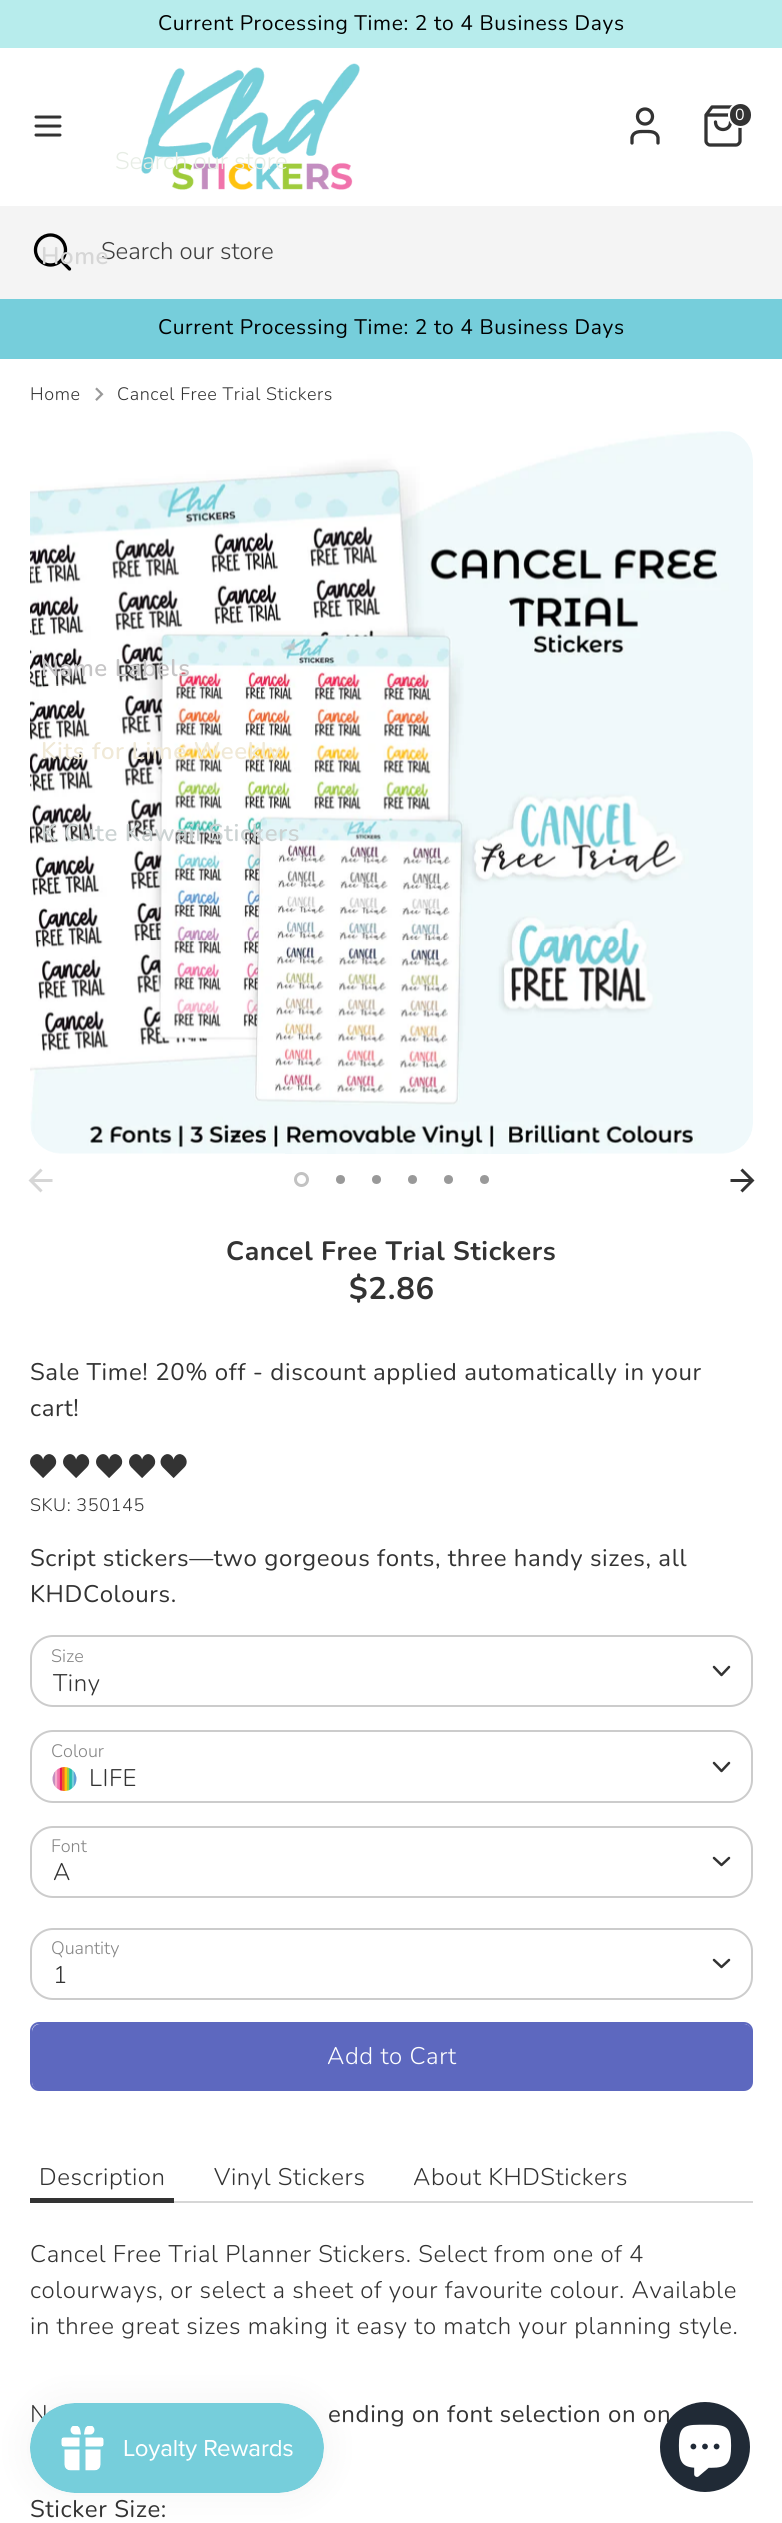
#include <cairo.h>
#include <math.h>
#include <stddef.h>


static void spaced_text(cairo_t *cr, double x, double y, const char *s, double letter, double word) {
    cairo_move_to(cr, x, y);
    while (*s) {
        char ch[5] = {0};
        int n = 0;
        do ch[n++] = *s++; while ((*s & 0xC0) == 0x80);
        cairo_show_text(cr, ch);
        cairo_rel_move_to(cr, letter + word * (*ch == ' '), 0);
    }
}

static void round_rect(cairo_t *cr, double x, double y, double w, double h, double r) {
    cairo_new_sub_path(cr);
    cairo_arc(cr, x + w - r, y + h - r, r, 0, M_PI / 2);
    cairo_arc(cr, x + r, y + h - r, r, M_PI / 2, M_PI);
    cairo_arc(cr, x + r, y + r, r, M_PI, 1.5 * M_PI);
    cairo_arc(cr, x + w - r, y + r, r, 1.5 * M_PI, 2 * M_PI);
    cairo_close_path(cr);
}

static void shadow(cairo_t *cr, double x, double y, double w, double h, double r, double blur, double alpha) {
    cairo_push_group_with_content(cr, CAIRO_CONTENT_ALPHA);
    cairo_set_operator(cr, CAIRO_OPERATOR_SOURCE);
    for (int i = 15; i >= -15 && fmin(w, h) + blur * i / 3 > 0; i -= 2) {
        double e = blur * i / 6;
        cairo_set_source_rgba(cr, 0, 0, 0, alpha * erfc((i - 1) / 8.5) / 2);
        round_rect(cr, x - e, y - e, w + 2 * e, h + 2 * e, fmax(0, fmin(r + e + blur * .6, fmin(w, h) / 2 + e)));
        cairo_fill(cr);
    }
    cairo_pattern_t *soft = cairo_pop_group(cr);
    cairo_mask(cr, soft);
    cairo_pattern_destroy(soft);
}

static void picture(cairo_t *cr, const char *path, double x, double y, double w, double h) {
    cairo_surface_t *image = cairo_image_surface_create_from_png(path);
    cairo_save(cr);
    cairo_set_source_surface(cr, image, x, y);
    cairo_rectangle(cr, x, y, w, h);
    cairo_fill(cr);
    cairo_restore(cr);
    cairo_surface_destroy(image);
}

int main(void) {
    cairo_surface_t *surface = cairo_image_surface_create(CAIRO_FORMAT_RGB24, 782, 2523);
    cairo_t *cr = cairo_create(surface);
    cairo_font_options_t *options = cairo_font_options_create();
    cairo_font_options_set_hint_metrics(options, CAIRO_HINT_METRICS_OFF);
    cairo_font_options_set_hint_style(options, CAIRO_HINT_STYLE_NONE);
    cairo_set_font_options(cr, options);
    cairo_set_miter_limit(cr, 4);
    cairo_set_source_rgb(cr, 1, 1, 1);
    cairo_paint(cr);
    cairo_set_source_rgb(cr, 0.718, 0.925, 0.925);
    cairo_rectangle(cr, 0, 0, 782, 48);
    cairo_fill(cr);
    cairo_select_font_face(cr, "Nunito", CAIRO_FONT_SLANT_NORMAL, CAIRO_FONT_WEIGHT_NORMAL);
    cairo_set_font_size(cr, 21);
    cairo_set_source_rgb(cr, 0, 0, 0);
    spaced_text(cr, 158, 30, "Current Processing Time: 2 to 4 Business Days", 0.6, 0);
    cairo_new_path(cr);
    cairo_move_to(cr, 36, 126);
    cairo_line_to(cr, 60, 126);
    cairo_move_to(cr, 36, 117);
    cairo_line_to(cr, 60, 117);
    cairo_move_to(cr, 36, 135);
    cairo_line_to(cr, 60, 135);
    cairo_set_source_rgb(cr, 0.2, 0.2, 0.2);
    cairo_set_line_width(cr, 3);
    cairo_set_line_cap(cr, CAIRO_LINE_CAP_ROUND);
    cairo_set_line_join(cr, CAIRO_LINE_JOIN_ROUND);
    cairo_stroke(cr);
    picture(cr, "img1.png", 141, 63, 219, 127);
    cairo_new_path(cr);
    cairo_move_to(cr, 658, 143);
    cairo_line_to(cr, 658, 137.5);
    cairo_curve_to(cr, 656.5, 131, 650, 131.5, 645, 131.5);
    cairo_curve_to(cr, 640, 131.5, 633.5, 131, 632, 137.5);
    cairo_line_to(cr, 632, 143);
    cairo_set_line_width(cr, 3.3);
    cairo_stroke(cr);
    cairo_arc(cr, 645, 116.5, 7.5, 0, 2 * M_PI);
    cairo_set_line_cap(cr, CAIRO_LINE_CAP_BUTT);
    cairo_set_line_join(cr, CAIRO_LINE_JOIN_MITER);
    cairo_stroke(cr);
    cairo_new_path(cr);
    cairo_move_to(cr, 712, 107);
    cairo_line_to(cr, 706, 115);
    cairo_line_to(cr, 706, 141);
    cairo_curve_to(cr, 706, 143, 708, 145, 710, 145);
    cairo_line_to(cr, 736, 145);
    cairo_curve_to(cr, 738, 145, 740, 143, 740, 141);
    cairo_line_to(cr, 740, 115);
    cairo_line_to(cr, 734, 107);
    cairo_close_path(cr);
    cairo_move_to(cr, 706, 115);
    cairo_line_to(cr, 740, 115);
    cairo_move_to(cr, 730.5, 122);
    cairo_curve_to(cr, 730.5, 132, 715.5, 132, 715.5, 122);
    cairo_set_line_cap(cr, CAIRO_LINE_CAP_ROUND);
    cairo_set_line_join(cr, CAIRO_LINE_JOIN_ROUND);
    cairo_stroke(cr);
    round_rect(cr, 729, 103, 23, 24, 11.5);
    cairo_fill_preserve(cr);
    cairo_set_source_rgb(cr, 1, 1, 1);
    cairo_set_line_width(cr, 2);
    cairo_set_line_cap(cr, CAIRO_LINE_CAP_BUTT);
    cairo_set_line_join(cr, CAIRO_LINE_JOIN_MITER);
    cairo_stroke(cr);
    cairo_set_font_size(cr, 16);
    cairo_move_to(cr, 735, 120);
    cairo_show_text(cr, "0");
    cairo_select_font_face(cr, "Nunito Light", CAIRO_FONT_SLANT_NORMAL, CAIRO_FONT_WEIGHT_NORMAL);
    cairo_set_font_size(cr, 24);
    cairo_set_source_rgb(cr, 0.906, 0.929, 0.898);
    cairo_move_to(cr, 115, 169);
    cairo_show_text(cr, "Search our store");
    cairo_set_source_rgb(cr, 0.957, 0.957, 0.957);
    cairo_rectangle(cr, 0, 206, 782, 93);
    cairo_fill(cr);
    cairo_arc(cr, 50.5, 250, 15, 0, 2 * M_PI);
    cairo_set_source_rgb(cr, 0, 0, 0);
    cairo_set_line_width(cr, 3.3);
    cairo_stroke(cr);
    cairo_new_path(cr);
    cairo_move_to(cr, 69.5, 269);
    cairo_line_to(cr, 61, 260.5);
    cairo_set_line_cap(cr, CAIRO_LINE_CAP_ROUND);
    cairo_set_line_join(cr, CAIRO_LINE_JOIN_ROUND);
    cairo_stroke(cr);
    cairo_set_source_rgb(cr, 0.239, 0.239, 0.239);
    cairo_move_to(cr, 101, 259);
    cairo_show_text(cr, "Search our store");
    cairo_select_font_face(cr, "Nunito SemiBold", CAIRO_FONT_SLANT_NORMAL, CAIRO_FONT_WEIGHT_NORMAL);
    cairo_set_source_rgb(cr, 0.839, 0.839, 0.839);
    spaced_text(cr, 41, 264, "Home", 0.6, 0);
    picture(cr, "img3.png", 30, 431, 723, 723);
    cairo_set_source_rgb(cr, 0.776, 0.773, 0.776);
    spaced_text(cr, 41, 676, "Name Labels", 0.6, 0);
    cairo_set_source_rgb(cr, 0.941, 0.914, 0.843);
    spaced_text(cr, 41, 759, "Kits for Lime Weekly", 0.6, 0);
    cairo_set_source_rgb(cr, 0.8, 0.827, 0.827);
    spaced_text(cr, 41, 841, "K Cute Kawaii Stickers", 0.6, 0);
    cairo_set_source_rgb(cr, 0.463, 0.808, 0.859);
    cairo_rectangle(cr, 0, 299, 782, 60);
    cairo_fill(cr);
    cairo_select_font_face(cr, "Nunito", CAIRO_FONT_SLANT_NORMAL, CAIRO_FONT_WEIGHT_NORMAL);
    cairo_set_font_size(cr, 21);
    cairo_set_source_rgb(cr, 0, 0, 0);
    spaced_text(cr, 158, 334, "Current Processing Time: 2 to 4 Business Days", 0.6, 0);
    cairo_select_font_face(cr, "Nunito Light", CAIRO_FONT_SLANT_NORMAL, CAIRO_FONT_WEIGHT_NORMAL);
    cairo_set_font_size(cr, 18);
    cairo_set_source_rgb(cr, 0.2, 0.2, 0.2);
    spaced_text(cr, 30, 400, "Home", 0.6, 0);
    picture(cr, "img2.png", 95, 387, 9, 14);
    spaced_text(cr, 117, 400, "Cancel Free Trial Stickers", 0.6, 0);
    picture(cr, "img4.png", 28, 1168, 25, 25);
    picture(cr, "img5.png", 730, 1168, 25, 25);
    cairo_arc(cr, 301.5, 1179.5, 6, 0, 2 * M_PI);
    cairo_set_source_rgb(cr, 0.761, 0.761, 0.761);
    cairo_set_line_width(cr, 3);
    cairo_set_line_cap(cr, CAIRO_LINE_CAP_BUTT);
    cairo_set_line_join(cr, CAIRO_LINE_JOIN_MITER);
    cairo_stroke(cr);
    cairo_set_source_rgb(cr, 0.6, 0.6, 0.6);
    cairo_arc(cr, 340.5, 1179.5, 4.5, 0, 2 * M_PI);
    cairo_fill(cr);
    cairo_arc(cr, 376.5, 1179.5, 4.5, 0, 2 * M_PI);
    cairo_fill(cr);
    cairo_arc(cr, 412.5, 1179.5, 4.5, 0, 2 * M_PI);
    cairo_fill(cr);
    cairo_arc(cr, 448.5, 1179.5, 4.5, 0, 2 * M_PI);
    cairo_fill(cr);
    cairo_arc(cr, 484.5, 1179.5, 4.5, 0, 2 * M_PI);
    cairo_fill(cr);
    cairo_select_font_face(cr, "Nunito", CAIRO_FONT_SLANT_NORMAL, CAIRO_FONT_WEIGHT_BOLD);
    cairo_set_font_size(cr, 26.5);
    cairo_set_source_rgb(cr, 0.2, 0.2, 0.2);
    spaced_text(cr, 226, 1260, "Cancel Free Trial Stickers", 0.65, 0);
    cairo_set_font_size(cr, 31);
    spaced_text(cr, 349, 1299, "$2.86", 0.75, 0);
    cairo_select_font_face(cr, "Nunito", CAIRO_FONT_SLANT_NORMAL, CAIRO_FONT_WEIGHT_NORMAL);
    cairo_set_font_size(cr, 24);
    spaced_text(cr, 30, 1380, "Sale Time! 20% off - discount applied automatically in your", 0.6, 0);
    spaced_text(cr, 30, 1416, "cart!", 0.6, 0);
    picture(cr, "img6.png", 30, 1454, 27, 24);
    picture(cr, "img6.png", 63, 1454, 27, 24);
    picture(cr, "img6.png", 96, 1454, 27, 24);
    picture(cr, "img6.png", 129, 1454, 27, 24);
    picture(cr, "img7.png", 160, 1454, 27, 24);
    cairo_select_font_face(cr, "Nunito Light", CAIRO_FONT_SLANT_NORMAL, CAIRO_FONT_WEIGHT_NORMAL);
    cairo_set_font_size(cr, 18);
    spaced_text(cr, 30, 1511, "SKU: 350145", 0.6, 0);
    cairo_select_font_face(cr, "Nunito", CAIRO_FONT_SLANT_NORMAL, CAIRO_FONT_WEIGHT_NORMAL);
    cairo_set_font_size(cr, 24);
    spaced_text(cr, 30, 1566, "Script stickers—two gorgeous fonts, three handy sizes, all", 0.6, 0);
    spaced_text(cr, 30, 1602, "KHDColours.", 0.6, 0);
    cairo_select_font_face(cr, "Nunito Light", CAIRO_FONT_SLANT_NORMAL, CAIRO_FONT_WEIGHT_NORMAL);
    cairo_set_font_size(cr, 18);
    cairo_set_source_rgb(cr, 0.522, 0.522, 0.522);
    cairo_move_to(cr, 51, 1662);
    cairo_show_text(cr, "Size");
    round_rect(cr, 31, 1636, 721, 70, 22);
    cairo_set_source_rgb(cr, 0.8, 0.8, 0.8);
    cairo_set_line_width(cr, 2);
    cairo_stroke(cr);
    cairo_new_path(cr);
    cairo_move_to(cr, 714, 1667);
    cairo_line_to(cr, 721.5, 1675);
    cairo_line_to(cr, 729, 1667);
    cairo_set_source_rgb(cr, 0.2, 0.2, 0.2);
    cairo_set_line_width(cr, 2.5);
    cairo_set_line_cap(cr, CAIRO_LINE_CAP_ROUND);
    cairo_set_line_join(cr, CAIRO_LINE_JOIN_ROUND);
    cairo_stroke(cr);
    cairo_set_font_size(cr, 24);
    spaced_text(cr, 53, 1691, "Tiny", 0.6, 0);
    cairo_set_font_size(cr, 18);
    cairo_set_source_rgb(cr, 0.522, 0.522, 0.522);
    cairo_move_to(cr, 51, 1757);
    cairo_show_text(cr, "Colour");
    round_rect(cr, 31, 1731, 721, 71, 22);
    cairo_set_source_rgb(cr, 0.8, 0.8, 0.8);
    cairo_set_line_width(cr, 2);
    cairo_set_line_cap(cr, CAIRO_LINE_CAP_BUTT);
    cairo_set_line_join(cr, CAIRO_LINE_JOIN_MITER);
    cairo_stroke(cr);
    picture(cr, "img8.png", 52, 1767, 25, 24);
    cairo_set_font_size(cr, 24);
    cairo_set_source_rgb(cr, 0.2, 0.2, 0.2);
    spaced_text(cr, 89, 1786, "LIFE", 0.6, 0);
    cairo_new_path(cr);
    cairo_move_to(cr, 714, 1763);
    cairo_line_to(cr, 721.5, 1771);
    cairo_line_to(cr, 729, 1763);
    cairo_set_line_width(cr, 2.5);
    cairo_set_line_cap(cr, CAIRO_LINE_CAP_ROUND);
    cairo_set_line_join(cr, CAIRO_LINE_JOIN_ROUND);
    cairo_stroke(cr);
    cairo_set_font_size(cr, 18);
    cairo_set_source_rgb(cr, 0.522, 0.522, 0.522);
    cairo_move_to(cr, 51, 1852);
    cairo_show_text(cr, "Font");
    round_rect(cr, 31, 1827, 721, 70, 22);
    cairo_set_source_rgb(cr, 0.8, 0.8, 0.8);
    cairo_set_line_width(cr, 2);
    cairo_set_line_cap(cr, CAIRO_LINE_CAP_BUTT);
    cairo_set_line_join(cr, CAIRO_LINE_JOIN_MITER);
    cairo_stroke(cr);
    cairo_set_font_size(cr, 24);
    cairo_set_source_rgb(cr, 0.2, 0.2, 0.2);
    spaced_text(cr, 53, 1880, "A", 0.6, 0);
    cairo_new_path(cr);
    cairo_move_to(cr, 714, 1858);
    cairo_line_to(cr, 721.5, 1865);
    cairo_line_to(cr, 729, 1858);
    cairo_set_line_width(cr, 2.5);
    cairo_set_line_cap(cr, CAIRO_LINE_CAP_ROUND);
    cairo_set_line_join(cr, CAIRO_LINE_JOIN_ROUND);
    cairo_stroke(cr);
    cairo_set_font_size(cr, 18);
    cairo_set_source_rgb(cr, 0.522, 0.522, 0.522);
    cairo_move_to(cr, 51, 1954);
    cairo_show_text(cr, "Quantity");
    round_rect(cr, 31, 1929, 721, 70, 22);
    cairo_set_source_rgb(cr, 0.8, 0.8, 0.8);
    cairo_set_line_width(cr, 2);
    cairo_set_line_cap(cr, CAIRO_LINE_CAP_BUTT);
    cairo_set_line_join(cr, CAIRO_LINE_JOIN_MITER);
    cairo_stroke(cr);
    cairo_new_path(cr);
    cairo_move_to(cr, 714, 1960);
    cairo_line_to(cr, 721.5, 1967);
    cairo_line_to(cr, 729, 1960);
    cairo_set_source_rgb(cr, 0.2, 0.2, 0.2);
    cairo_set_line_width(cr, 2.5);
    cairo_set_line_cap(cr, CAIRO_LINE_CAP_ROUND);
    cairo_set_line_join(cr, CAIRO_LINE_JOIN_ROUND);
    cairo_stroke(cr);
    cairo_set_font_size(cr, 24);
    spaced_text(cr, 53, 1983, "1", 0.6, 0);
    round_rect(cr, 31, 2023, 721, 67, 8);
    cairo_set_source_rgb(cr, 0.365, 0.408, 0.749);
    cairo_set_line_width(cr, 2);
    cairo_set_line_cap(cr, CAIRO_LINE_CAP_BUTT);
    cairo_set_line_join(cr, CAIRO_LINE_JOIN_MITER);
    cairo_stroke(cr);
    round_rect(cr, 32, 2024, 720, 66, 8);
    cairo_fill(cr);
    cairo_set_source_rgb(cr, 1, 1, 1);
    spaced_text(cr, 327, 2064, "Add to Cart", 0.6, 0);
    cairo_set_source_rgb(cr, 0.839, 0.839, 0.839);
    cairo_rectangle(cr, 174, 2201, 579, 2);
    cairo_fill(cr);
    cairo_set_source_rgb(cr, 0.2, 0.2, 0.2);
    spaced_text(cr, 39, 2185, "Description", 0.6, 0);
    cairo_rectangle(cr, 30, 2198, 144, 5);
    cairo_fill(cr);
    spaced_text(cr, 214, 2185, "Vinyl Stickers", 0.6, 0);
    spaced_text(cr, 413, 2185, "About KHDStickers", 0.6, 0);
    spaced_text(cr, 30, 2262, "Cancel Free Trial Planner Stickers. Select from one of 4", 0.6, 0);
    spaced_text(cr, 30, 2298, "colourways, or select a sheet of your favourite colour. Available", 0.6, 0);
    spaced_text(cr, 30, 2334, "in three great sizes making it easy to match your planning style.", 0.6, 0);
    spaced_text(cr, 30, 2422, "N", 0.6, 0);
    cairo_select_font_face(cr, "Nunito", CAIRO_FONT_SLANT_NORMAL, CAIRO_FONT_WEIGHT_NORMAL);
    spaced_text(cr, 328, 2422, "ending on font selection on on", 0.6, 0);
    spaced_text(cr, 30, 2517, "Sticker Size:", 0.6, 0);
    cairo_set_source_rgb(cr, 0, 0, 0);
    shadow(cr, 30, 2403, 294, 90, 45, 19, 0.05);
    picture(cr, "img9.png", 30, 2403, 294, 90);
    cairo_set_source_rgb(cr, 0.125, 0.165, 0.212);
    cairo_arc(cr, 705, 2447, 45, 0, 2 * M_PI);
    cairo_fill(cr);
    picture(cr, "img10.png", 678, 2424, 54, 53);
    cairo_surface_write_to_png(surface, "page.png");
    cairo_font_options_destroy(options);
    cairo_destroy(cr);
    cairo_surface_destroy(surface);
    return 0;
}
